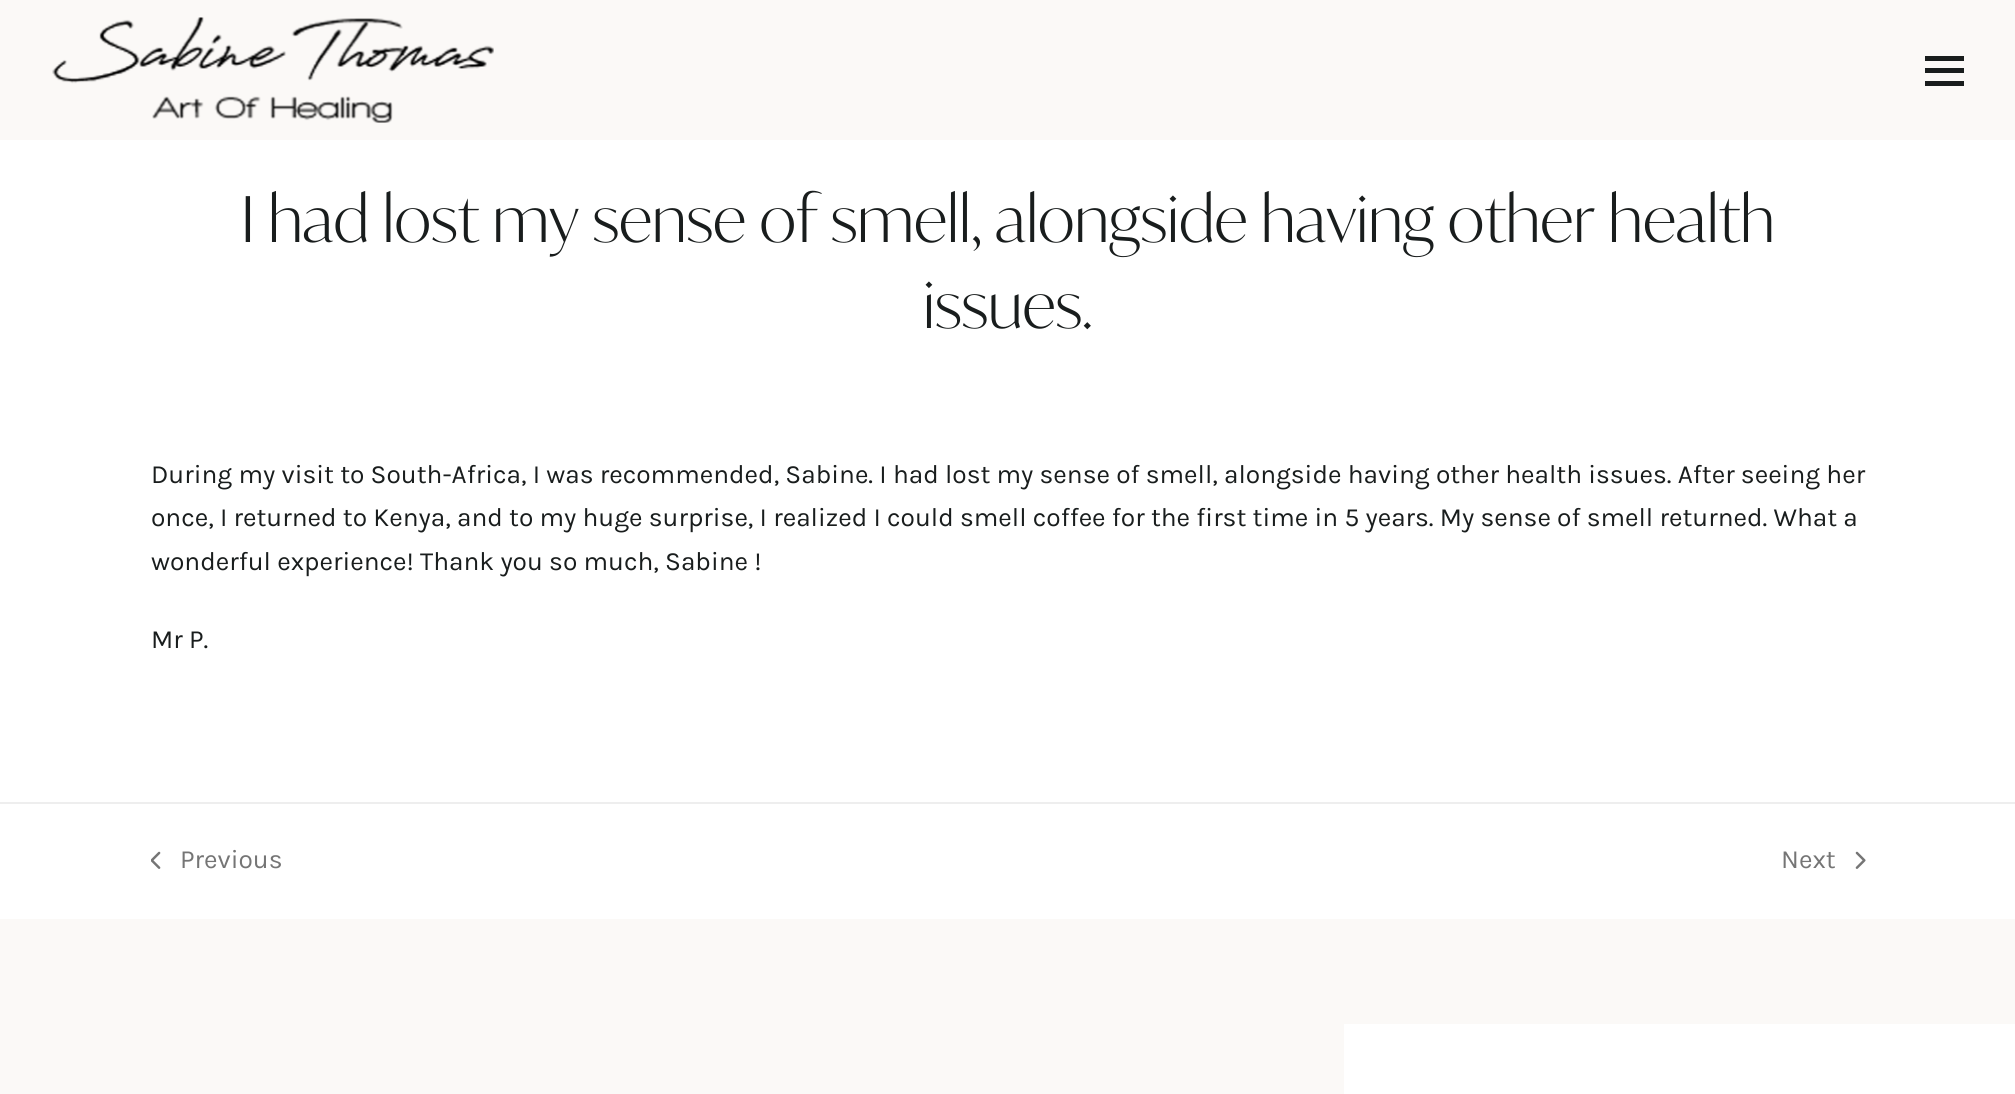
#include <cairo.h>
#include <math.h>
#include <stddef.h>


static void picture(cairo_t *cr, const char *path, double x, double y, double w, double h) {
    cairo_surface_t *image = cairo_image_surface_create_from_png(path);
    cairo_save(cr);
    cairo_set_source_surface(cr, image, x, y);
    cairo_rectangle(cr, x, y, w, h);
    cairo_fill(cr);
    cairo_restore(cr);
    cairo_surface_destroy(image);
}

int main(void) {
    cairo_surface_t *surface = cairo_image_surface_create(CAIRO_FORMAT_RGB24, 2015, 1094);
    cairo_t *cr = cairo_create(surface);
    cairo_font_options_t *options = cairo_font_options_create();
    cairo_font_options_set_hint_metrics(options, CAIRO_HINT_METRICS_OFF);
    cairo_font_options_set_hint_style(options, CAIRO_HINT_STYLE_NONE);
    cairo_set_font_options(cr, options);
    cairo_set_miter_limit(cr, 4);
    cairo_set_source_rgb(cr, 1, 1, 1);
    cairo_paint(cr);
    cairo_set_source_rgb(cr, 0.984, 0.973, 0.965);
    cairo_rectangle(cr, 0, 0, 2015, 140);
    cairo_fill(cr);
    picture(cr, "img1.png", 52, 17, 442, 106);
    cairo_set_source_rgb(cr, 0.098, 0.114, 0.114);
    cairo_rectangle(cr, 1925, 68, 39, 5);
    cairo_fill(cr);
    cairo_rectangle(cr, 1925, 56, 39, 5);
    cairo_fill(cr);
    cairo_rectangle(cr, 1925, 81, 39, 5);
    cairo_fill(cr);
    cairo_select_font_face(cr, "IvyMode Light", CAIRO_FONT_SLANT_NORMAL, CAIRO_FONT_WEIGHT_NORMAL);
    cairo_set_font_size(cr, 63);
    cairo_move_to(cr, 241, 242);
    cairo_show_text(cr, "I had lost my sense of smell, alongside having other health");
    cairo_move_to(cr, 923, 328);
    cairo_show_text(cr, "issues.");
    cairo_select_font_face(cr, "Karla", CAIRO_FONT_SLANT_NORMAL, CAIRO_FONT_WEIGHT_NORMAL);
    cairo_set_font_size(cr, 26.25);
    cairo_move_to(cr, 151, 483);
    cairo_show_text(cr, "During my visit to South-Africa, I was recommended, Sabine. I had lost my sense of smell, alongside having other health issues. After seeing her");
    cairo_move_to(cr, 151, 526);
    cairo_show_text(cr, "once, I returned to Kenya, and to my huge surprise, I realized I could smell coffee for the first time in 5 years. My sense of smell returned. What a");
    cairo_move_to(cr, 151, 570);
    cairo_show_text(cr, "wonderful experience! Thank you so much, Sabine !");
    cairo_move_to(cr, 151, 648);
    cairo_show_text(cr, "Mr P.");
    cairo_set_source_rgb(cr, 0.933, 0.933, 0.933);
    cairo_rectangle(cr, 0, 802, 2015, 2);
    cairo_fill(cr);
    picture(cr, "img2.png", 151, 851, 10, 18);
    cairo_set_source_rgb(cr, 0.459, 0.459, 0.459);
    cairo_move_to(cr, 180, 868);
    cairo_show_text(cr, "Previous");
    cairo_move_to(cr, 1781, 868);
    cairo_show_text(cr, "Next");
    picture(cr, "img3.png", 1855, 851, 11, 18);
    cairo_set_source_rgb(cr, 0.984, 0.973, 0.965);
    cairo_rectangle(cr, 0, 919, 2015, 105);
    cairo_fill(cr);
    cairo_rectangle(cr, 0, 1024, 1344, 70);
    cairo_fill(cr);
    cairo_surface_write_to_png(surface, "page.png");
    cairo_font_options_destroy(options);
    cairo_destroy(cr);
    cairo_surface_destroy(surface);
    return 0;
}
